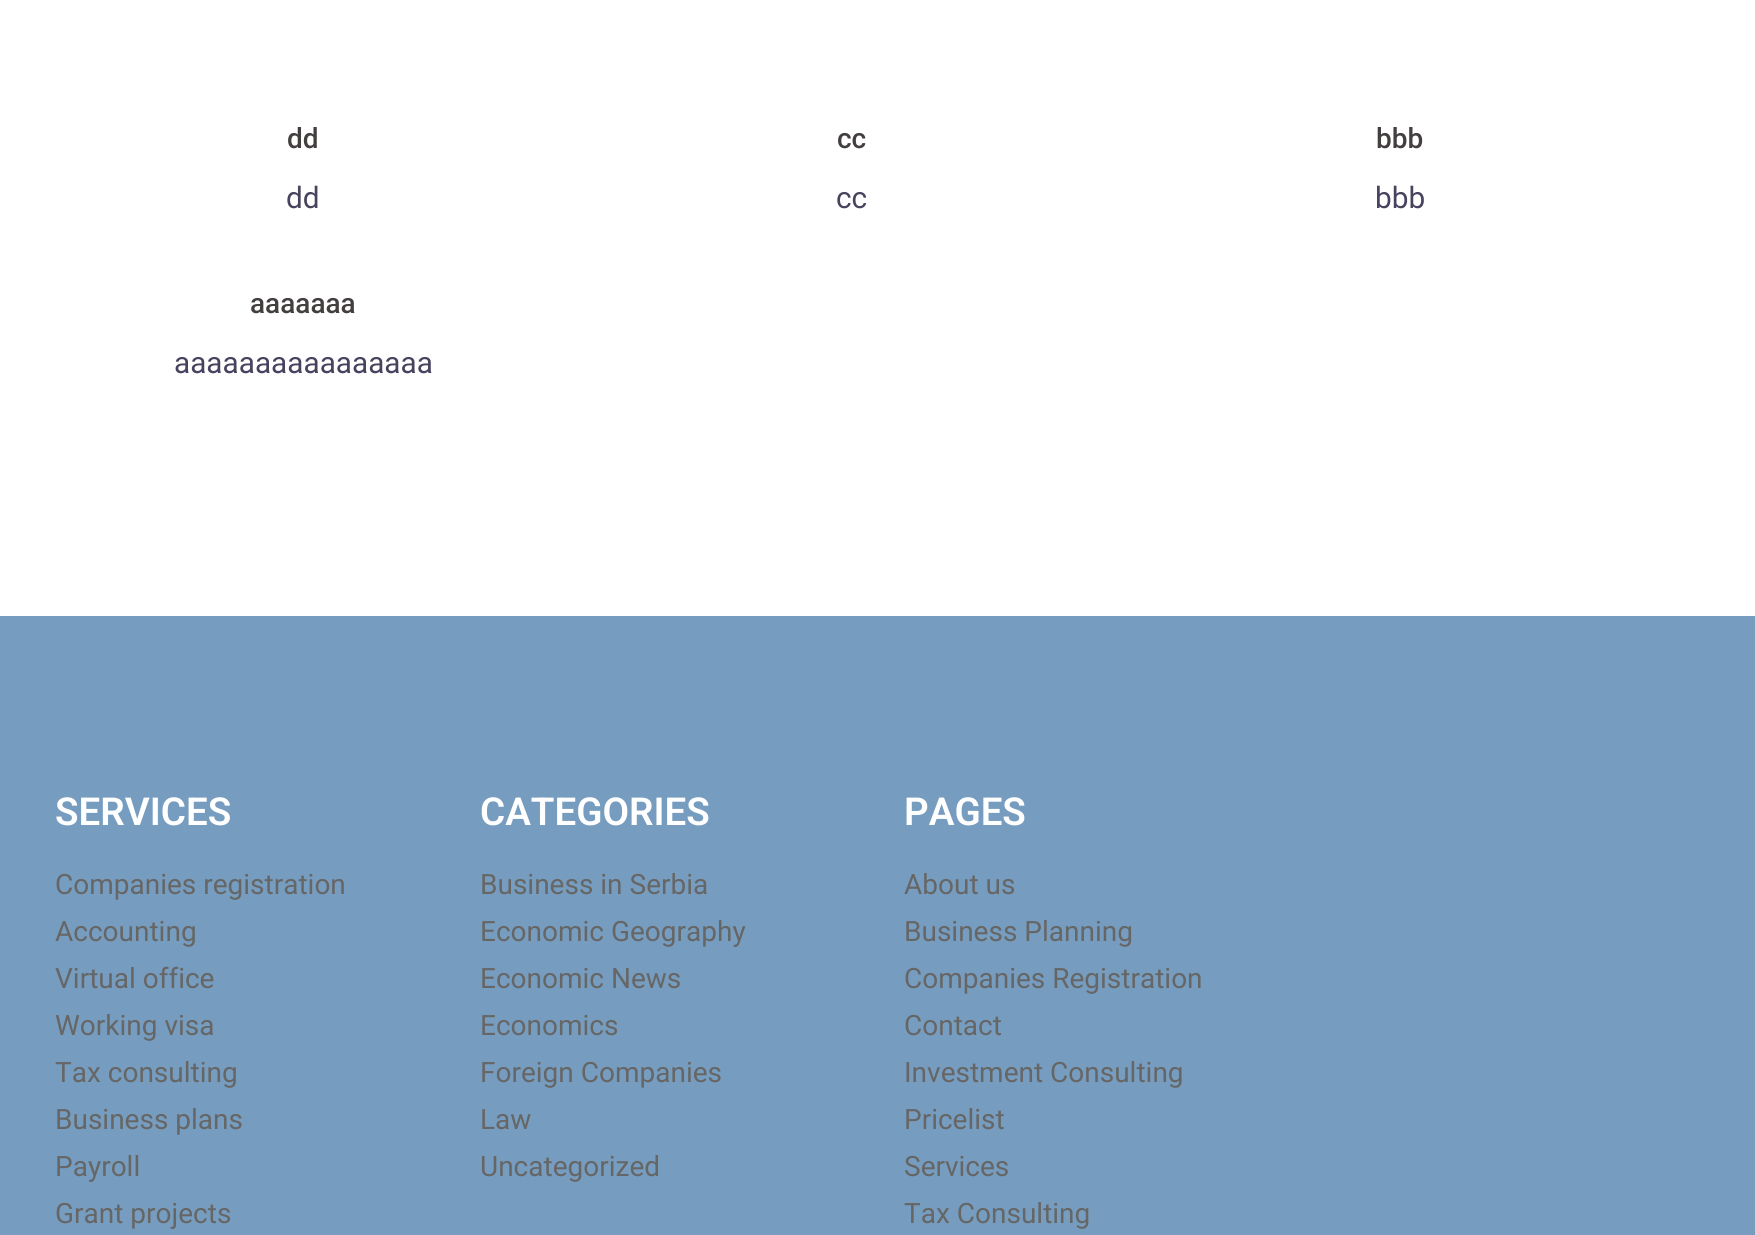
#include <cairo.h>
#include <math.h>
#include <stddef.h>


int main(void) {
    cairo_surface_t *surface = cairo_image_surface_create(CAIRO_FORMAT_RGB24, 1755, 1235);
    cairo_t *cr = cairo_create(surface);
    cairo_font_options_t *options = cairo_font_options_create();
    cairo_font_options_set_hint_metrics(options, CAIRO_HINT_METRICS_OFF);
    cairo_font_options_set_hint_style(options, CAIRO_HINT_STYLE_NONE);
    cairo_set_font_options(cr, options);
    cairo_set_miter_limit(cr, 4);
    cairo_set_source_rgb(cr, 1, 1, 1);
    cairo_paint(cr);
    cairo_select_font_face(cr, "Roboto Medium", CAIRO_FONT_SLANT_NORMAL, CAIRO_FONT_WEIGHT_NORMAL);
    cairo_set_font_size(cr, 28);
    cairo_set_source_rgb(cr, 0.267, 0.247, 0.247);
    cairo_move_to(cr, 287, 148);
    cairo_show_text(cr, "dd");
    cairo_select_font_face(cr, "Roboto", CAIRO_FONT_SLANT_NORMAL, CAIRO_FONT_WEIGHT_NORMAL);
    cairo_set_font_size(cr, 29.75);
    cairo_set_source_rgb(cr, 0.278, 0.259, 0.365);
    cairo_move_to(cr, 286, 208);
    cairo_show_text(cr, "dd");
    cairo_select_font_face(cr, "Roboto Medium", CAIRO_FONT_SLANT_NORMAL, CAIRO_FONT_WEIGHT_NORMAL);
    cairo_set_font_size(cr, 28);
    cairo_set_source_rgb(cr, 0.267, 0.247, 0.247);
    cairo_move_to(cr, 837, 148);
    cairo_show_text(cr, "cc");
    cairo_select_font_face(cr, "Roboto", CAIRO_FONT_SLANT_NORMAL, CAIRO_FONT_WEIGHT_NORMAL);
    cairo_set_font_size(cr, 29.75);
    cairo_set_source_rgb(cr, 0.278, 0.259, 0.365);
    cairo_move_to(cr, 836, 208);
    cairo_show_text(cr, "cc");
    cairo_select_font_face(cr, "Roboto Medium", CAIRO_FONT_SLANT_NORMAL, CAIRO_FONT_WEIGHT_NORMAL);
    cairo_set_font_size(cr, 28);
    cairo_set_source_rgb(cr, 0.267, 0.247, 0.247);
    cairo_move_to(cr, 1376, 148);
    cairo_show_text(cr, "bbb");
    cairo_select_font_face(cr, "Roboto", CAIRO_FONT_SLANT_NORMAL, CAIRO_FONT_WEIGHT_NORMAL);
    cairo_set_font_size(cr, 29.75);
    cairo_set_source_rgb(cr, 0.278, 0.259, 0.365);
    cairo_move_to(cr, 1375, 208);
    cairo_show_text(cr, "bbb");
    cairo_select_font_face(cr, "Roboto Medium", CAIRO_FONT_SLANT_NORMAL, CAIRO_FONT_WEIGHT_NORMAL);
    cairo_set_font_size(cr, 28);
    cairo_set_source_rgb(cr, 0.267, 0.247, 0.247);
    cairo_move_to(cr, 250, 313);
    cairo_show_text(cr, "aaaaaaa");
    cairo_select_font_face(cr, "Roboto", CAIRO_FONT_SLANT_NORMAL, CAIRO_FONT_WEIGHT_NORMAL);
    cairo_set_font_size(cr, 29.75);
    cairo_set_source_rgb(cr, 0.278, 0.259, 0.365);
    cairo_move_to(cr, 174, 373);
    cairo_show_text(cr, "aaaaaaaaaaaaaaaa");
    cairo_set_source_rgb(cr, 0.463, 0.616, 0.749);
    cairo_rectangle(cr, 0, 616, 1755, 619);
    cairo_fill(cr);
    cairo_select_font_face(cr, "Roboto SemiBold", CAIRO_FONT_SLANT_NORMAL, CAIRO_FONT_WEIGHT_NORMAL);
    cairo_set_font_size(cr, 38.5);
    cairo_set_source_rgb(cr, 1, 1, 1);
    cairo_move_to(cr, 55, 825);
    cairo_show_text(cr, "SERVICES");
    cairo_select_font_face(cr, "Roboto", CAIRO_FONT_SLANT_NORMAL, CAIRO_FONT_WEIGHT_NORMAL);
    cairo_set_font_size(cr, 28);
    cairo_set_source_rgb(cr, 0.4, 0.4, 0.4);
    cairo_move_to(cr, 55, 894);
    cairo_show_text(cr, "Companies registration");
    cairo_move_to(cr, 55, 941);
    cairo_show_text(cr, "Accounting");
    cairo_move_to(cr, 55, 988);
    cairo_show_text(cr, "Virtual office");
    cairo_move_to(cr, 55, 1035);
    cairo_show_text(cr, "Working visa");
    cairo_move_to(cr, 55, 1082);
    cairo_show_text(cr, "Tax consulting");
    cairo_move_to(cr, 55, 1129);
    cairo_show_text(cr, "Business plans");
    cairo_move_to(cr, 55, 1176);
    cairo_show_text(cr, "Payroll");
    cairo_move_to(cr, 55, 1223);
    cairo_show_text(cr, "Grant projects");
    cairo_select_font_face(cr, "Roboto SemiBold", CAIRO_FONT_SLANT_NORMAL, CAIRO_FONT_WEIGHT_NORMAL);
    cairo_set_font_size(cr, 38.5);
    cairo_set_source_rgb(cr, 1, 1, 1);
    cairo_move_to(cr, 480, 825);
    cairo_show_text(cr, "CATEGORIES");
    cairo_select_font_face(cr, "Roboto", CAIRO_FONT_SLANT_NORMAL, CAIRO_FONT_WEIGHT_NORMAL);
    cairo_set_font_size(cr, 28);
    cairo_set_source_rgb(cr, 0.4, 0.4, 0.4);
    cairo_move_to(cr, 480, 894);
    cairo_show_text(cr, "Business in Serbia");
    cairo_move_to(cr, 480, 941);
    cairo_show_text(cr, "Economic Geography");
    cairo_move_to(cr, 480, 988);
    cairo_show_text(cr, "Economic News");
    cairo_move_to(cr, 480, 1035);
    cairo_show_text(cr, "Economics");
    cairo_move_to(cr, 480, 1082);
    cairo_show_text(cr, "Foreign Companies");
    cairo_move_to(cr, 480, 1129);
    cairo_show_text(cr, "Law");
    cairo_move_to(cr, 480, 1176);
    cairo_show_text(cr, "Uncategorized");
    cairo_select_font_face(cr, "Roboto SemiBold", CAIRO_FONT_SLANT_NORMAL, CAIRO_FONT_WEIGHT_NORMAL);
    cairo_set_font_size(cr, 38.5);
    cairo_set_source_rgb(cr, 1, 1, 1);
    cairo_move_to(cr, 904, 825);
    cairo_show_text(cr, "PAGES");
    cairo_select_font_face(cr, "Roboto", CAIRO_FONT_SLANT_NORMAL, CAIRO_FONT_WEIGHT_NORMAL);
    cairo_set_font_size(cr, 28);
    cairo_set_source_rgb(cr, 0.4, 0.4, 0.4);
    cairo_move_to(cr, 904, 894);
    cairo_show_text(cr, "About us");
    cairo_move_to(cr, 904, 941);
    cairo_show_text(cr, "Business Planning");
    cairo_move_to(cr, 904, 988);
    cairo_show_text(cr, "Companies Registration");
    cairo_move_to(cr, 904, 1035);
    cairo_show_text(cr, "Contact");
    cairo_move_to(cr, 904, 1082);
    cairo_show_text(cr, "Investment Consulting");
    cairo_move_to(cr, 904, 1129);
    cairo_show_text(cr, "Pricelist");
    cairo_move_to(cr, 904, 1176);
    cairo_show_text(cr, "Services");
    cairo_move_to(cr, 904, 1223);
    cairo_show_text(cr, "Tax Consulting");
    cairo_surface_write_to_png(surface, "page.png");
    cairo_font_options_destroy(options);
    cairo_destroy(cr);
    cairo_surface_destroy(surface);
    return 0;
}
